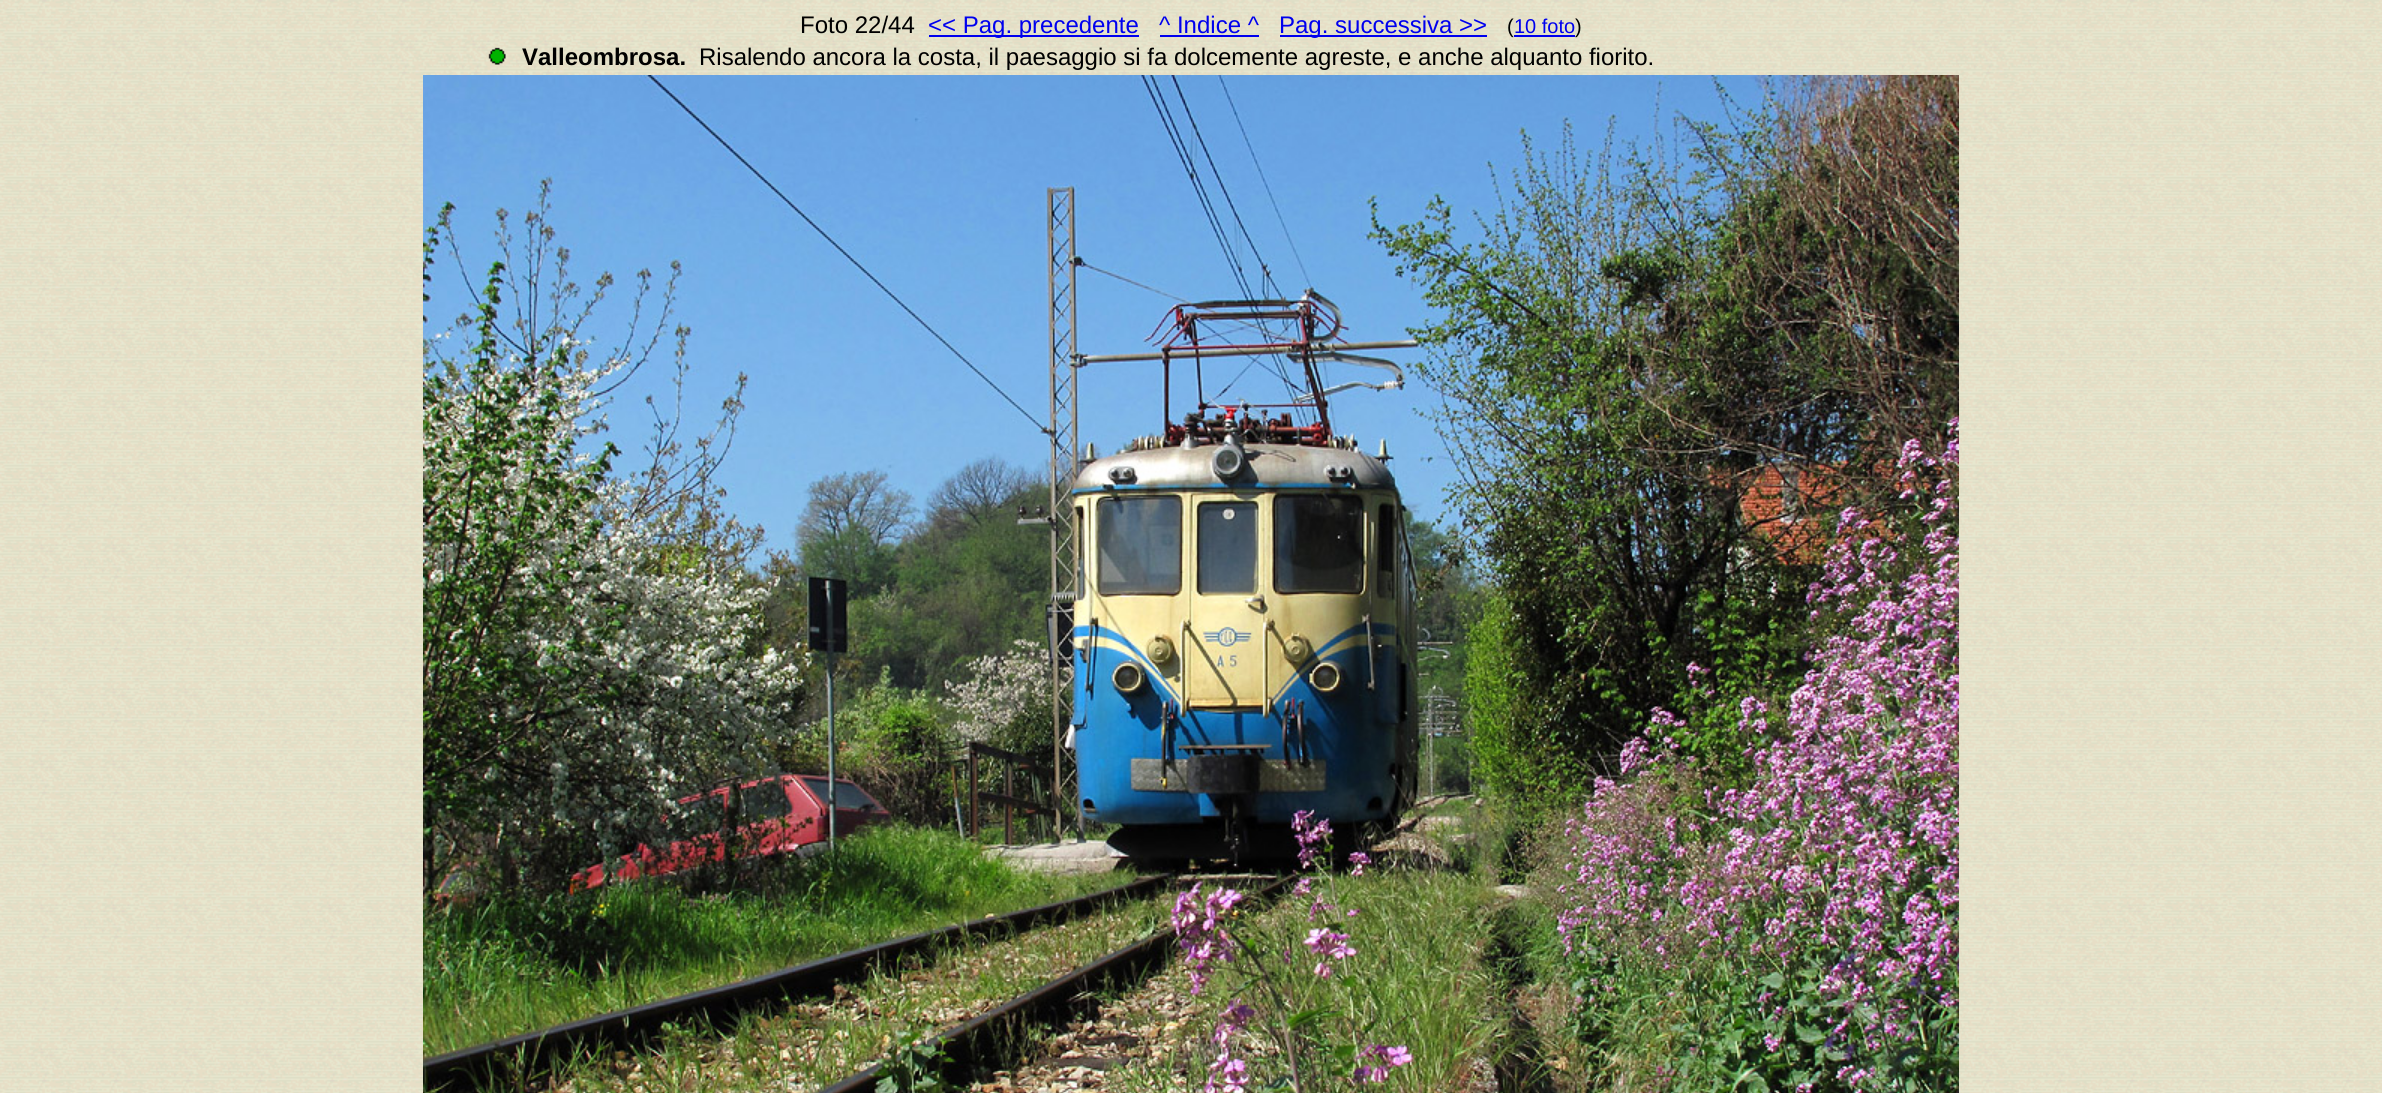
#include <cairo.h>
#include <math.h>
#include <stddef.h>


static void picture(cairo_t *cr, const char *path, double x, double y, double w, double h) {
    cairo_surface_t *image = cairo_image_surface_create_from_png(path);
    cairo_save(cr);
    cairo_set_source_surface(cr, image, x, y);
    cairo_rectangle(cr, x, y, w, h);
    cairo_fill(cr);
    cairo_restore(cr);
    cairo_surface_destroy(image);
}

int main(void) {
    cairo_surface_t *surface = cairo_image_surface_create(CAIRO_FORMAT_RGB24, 2382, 1093);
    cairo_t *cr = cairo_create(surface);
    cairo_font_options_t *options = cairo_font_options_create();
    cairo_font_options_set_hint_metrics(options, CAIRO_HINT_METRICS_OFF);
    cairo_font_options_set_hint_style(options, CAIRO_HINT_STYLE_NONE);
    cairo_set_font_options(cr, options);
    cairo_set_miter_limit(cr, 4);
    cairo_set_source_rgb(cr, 1, 1, 1);
    cairo_paint(cr);
    picture(cr, "img1.png", 0, 0, 2382, 1093);
    cairo_select_font_face(cr, "Liberation Sans", CAIRO_FONT_SLANT_NORMAL, CAIRO_FONT_WEIGHT_NORMAL);
    cairo_set_font_size(cr, 24);
    cairo_set_source_rgb(cr, 0, 0, 0);
    cairo_move_to(cr, 800, 33);
    cairo_show_text(cr, "Foto 22/44");
    cairo_set_source_rgb(cr, 0, 0, 0.933);
    cairo_rectangle(cr, 929, 35, 210, 2);
    cairo_fill(cr);
    cairo_move_to(cr, 928, 33);
    cairo_show_text(cr, "<< Pag. precedente");
    cairo_move_to(cr, 1159, 33);
    cairo_show_text(cr, "^ Indice ^");
    cairo_rectangle(cr, 1160, 35, 99, 2);
    cairo_fill(cr);
    cairo_rectangle(cr, 1280, 35, 207, 2);
    cairo_fill(cr);
    cairo_move_to(cr, 1279, 33);
    cairo_show_text(cr, "Pag. successiva >>");
    cairo_set_font_size(cr, 20);
    cairo_set_source_rgb(cr, 0, 0, 0);
    cairo_move_to(cr, 1507, 33);
    cairo_show_text(cr, "(");
    cairo_set_source_rgb(cr, 0, 0, 0.933);
    cairo_rectangle(cr, 1514, 35, 61, 2);
    cairo_fill(cr);
    cairo_move_to(cr, 1514, 33);
    cairo_show_text(cr, "10 foto");
    cairo_set_source_rgb(cr, 0, 0, 0);
    cairo_move_to(cr, 1575, 33);
    cairo_show_text(cr, ")");
    picture(cr, "img2.png", 488, 47, 18, 18);
    cairo_select_font_face(cr, "Liberation Sans", CAIRO_FONT_SLANT_NORMAL, CAIRO_FONT_WEIGHT_BOLD);
    cairo_set_font_size(cr, 24);
    cairo_move_to(cr, 522, 65);
    cairo_show_text(cr, "Valleombrosa.");
    cairo_select_font_face(cr, "Liberation Sans", CAIRO_FONT_SLANT_NORMAL, CAIRO_FONT_WEIGHT_NORMAL);
    cairo_move_to(cr, 699, 65);
    cairo_show_text(cr, "Risalendo ancora la costa, il paesaggio si fa dolcemente agreste, e anche alquanto fiorito.");
    picture(cr, "img3.png", 423, 75, 1536, 1018);
    cairo_surface_write_to_png(surface, "page.png");
    cairo_font_options_destroy(options);
    cairo_destroy(cr);
    cairo_surface_destroy(surface);
    return 0;
}
